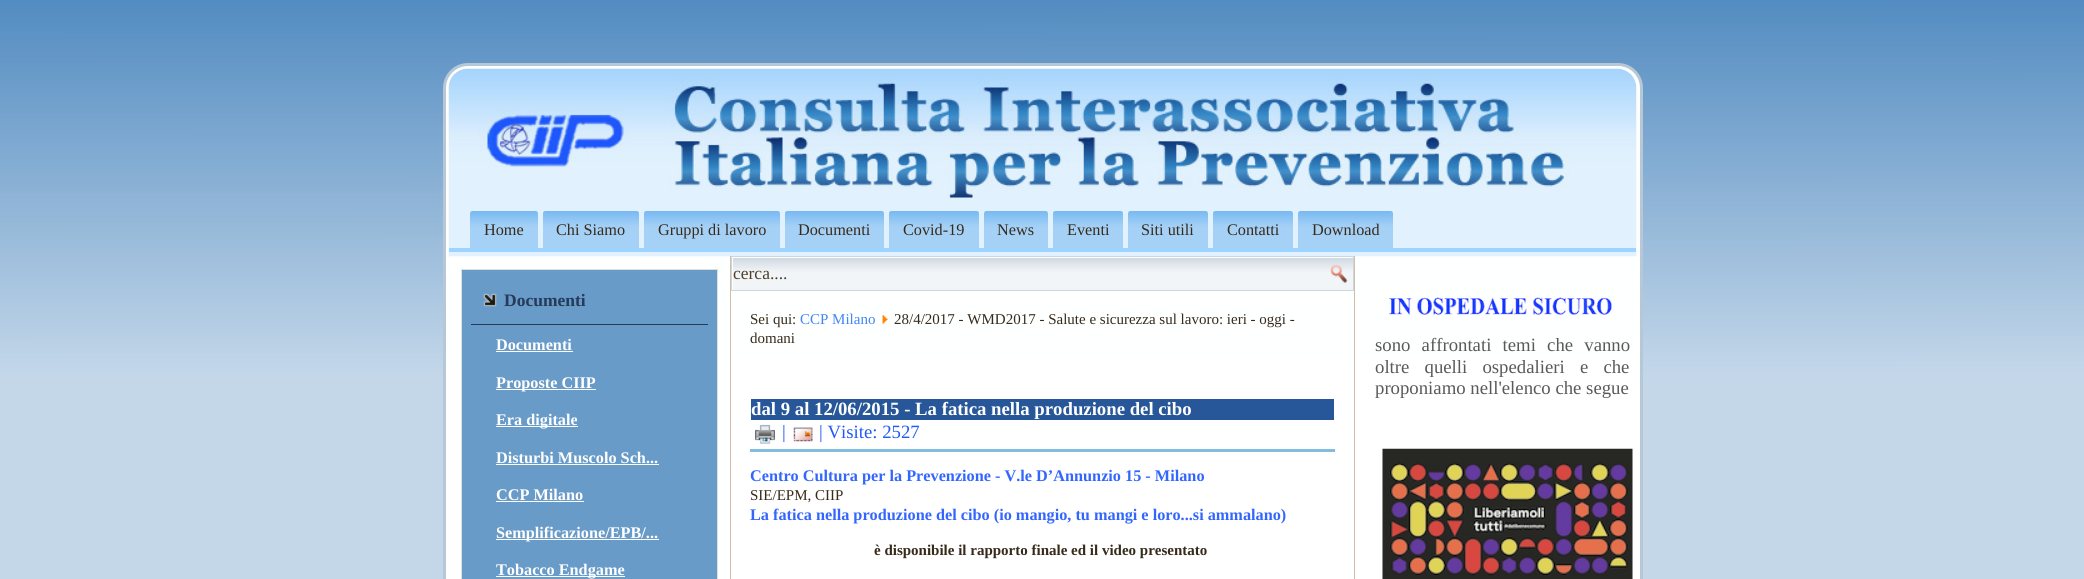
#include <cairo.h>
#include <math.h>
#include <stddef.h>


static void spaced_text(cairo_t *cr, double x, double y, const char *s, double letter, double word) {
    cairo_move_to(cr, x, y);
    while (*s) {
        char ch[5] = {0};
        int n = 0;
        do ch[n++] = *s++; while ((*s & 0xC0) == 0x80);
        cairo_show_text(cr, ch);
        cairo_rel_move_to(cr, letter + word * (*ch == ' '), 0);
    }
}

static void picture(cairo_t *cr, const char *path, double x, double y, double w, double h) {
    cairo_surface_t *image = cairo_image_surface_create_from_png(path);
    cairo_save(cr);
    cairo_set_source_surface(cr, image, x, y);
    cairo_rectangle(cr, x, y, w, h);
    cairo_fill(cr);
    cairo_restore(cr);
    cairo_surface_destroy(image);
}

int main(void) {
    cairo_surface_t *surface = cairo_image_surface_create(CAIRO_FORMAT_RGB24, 2084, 579);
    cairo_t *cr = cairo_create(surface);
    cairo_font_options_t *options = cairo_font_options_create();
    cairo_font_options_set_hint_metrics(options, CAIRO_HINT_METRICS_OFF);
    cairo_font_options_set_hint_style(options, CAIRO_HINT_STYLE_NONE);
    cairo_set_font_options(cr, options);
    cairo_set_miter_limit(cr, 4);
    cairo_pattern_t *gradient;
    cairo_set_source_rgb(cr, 1, 1, 1);
    cairo_paint(cr);
    gradient = cairo_pattern_create_linear(1042, 0, 1043, 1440);
    cairo_pattern_add_color_stop_rgba(gradient, 0, 0.325, 0.549, 0.757, 1);
    cairo_pattern_add_color_stop_rgba(gradient, 0.26, 0.765, 0.843, 0.914, 1);
    cairo_set_source(cr, gradient);
    cairo_pattern_destroy(gradient);
    cairo_rectangle(cr, 0, 0, 2084, 579);
    cairo_fill(cr);
    cairo_set_source_rgba(cr, 1, 1, 1, 0.99);
    cairo_new_path(cr);
    cairo_move_to(cr, 468, 64.5);
    cairo_line_to(cr, 1618, 64.5);
    cairo_curve_to(cr, 1631, 64.5, 1641.5, 75, 1641.5, 88);
    cairo_line_to(cr, 1641.5, 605.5);
    cairo_line_to(cr, 444.5, 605.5);
    cairo_line_to(cr, 444.5, 88);
    cairo_curve_to(cr, 444.5, 75, 455, 64.5, 468, 64.5);
    cairo_close_path(cr);
    cairo_fill_preserve(cr);
    cairo_set_source_rgb(cr, 0.714, 0.78, 0.843);
    cairo_set_line_width(cr, 3);
    cairo_stroke(cr);
    picture(cr, "img1.png", 448, 68, 1189, 189);
    cairo_set_source_rgb(cr, 0.62, 0.824, 1);
    cairo_rectangle(cr, 449, 248, 1187, 4);
    cairo_fill(cr);
    gradient = cairo_pattern_create_linear(504, 211, 504, 248);
    cairo_pattern_add_color_stop_rgba(gradient, 0, 0.471, 0.725, 0.949, 1);
    cairo_pattern_add_color_stop_rgba(gradient, 0.4, 0.635, 0.812, 0.965, 1);
    cairo_pattern_add_color_stop_rgba(gradient, 0.5, 0.651, 0.82, 0.969, 1);
    cairo_pattern_add_color_stop_rgba(gradient, 1, 0.651, 0.82, 0.969, 1);
    cairo_set_source(cr, gradient);
    cairo_pattern_destroy(gradient);
    cairo_new_path(cr);
    cairo_move_to(cr, 472.5, 211);
    cairo_line_to(cr, 535.5, 211);
    cairo_curve_to(cr, 537, 211, 538, 212, 538, 213.5);
    cairo_line_to(cr, 538, 248);
    cairo_line_to(cr, 470, 248);
    cairo_line_to(cr, 470, 213.5);
    cairo_curve_to(cr, 470, 212, 471, 211, 472.5, 211);
    cairo_close_path(cr);
    cairo_fill(cr);
    cairo_select_font_face(cr, "Liberation Serif", CAIRO_FONT_SLANT_NORMAL, CAIRO_FONT_WEIGHT_NORMAL);
    cairo_set_font_size(cr, 16.25);
    cairo_set_source_rgb(cr, 0.212, 0.165, 0.106);
    cairo_move_to(cr, 484, 235);
    cairo_show_text(cr, "Home");
    gradient = cairo_pattern_create_linear(591, 211, 591, 248);
    cairo_pattern_add_color_stop_rgba(gradient, 0, 0.471, 0.725, 0.949, 1);
    cairo_pattern_add_color_stop_rgba(gradient, 0.4, 0.635, 0.812, 0.965, 1);
    cairo_pattern_add_color_stop_rgba(gradient, 0.5, 0.651, 0.82, 0.969, 1);
    cairo_pattern_add_color_stop_rgba(gradient, 1, 0.651, 0.82, 0.969, 1);
    cairo_set_source(cr, gradient);
    cairo_pattern_destroy(gradient);
    cairo_new_path(cr);
    cairo_move_to(cr, 545.5, 211);
    cairo_line_to(cr, 636.5, 211);
    cairo_curve_to(cr, 638, 211, 639, 212, 639, 213.5);
    cairo_line_to(cr, 639, 248);
    cairo_line_to(cr, 543, 248);
    cairo_line_to(cr, 543, 213.5);
    cairo_curve_to(cr, 543, 212, 544, 211, 545.5, 211);
    cairo_close_path(cr);
    cairo_fill(cr);
    cairo_set_source_rgb(cr, 0.212, 0.165, 0.106);
    cairo_move_to(cr, 556, 235);
    cairo_show_text(cr, "Chi Siamo");
    gradient = cairo_pattern_create_linear(712, 211, 712, 248);
    cairo_pattern_add_color_stop_rgba(gradient, 0, 0.471, 0.725, 0.949, 1);
    cairo_pattern_add_color_stop_rgba(gradient, 0.4, 0.635, 0.812, 0.965, 1);
    cairo_pattern_add_color_stop_rgba(gradient, 0.5, 0.651, 0.82, 0.969, 1);
    cairo_pattern_add_color_stop_rgba(gradient, 1, 0.651, 0.82, 0.969, 1);
    cairo_set_source(cr, gradient);
    cairo_pattern_destroy(gradient);
    cairo_new_path(cr);
    cairo_move_to(cr, 646.5, 211);
    cairo_line_to(cr, 777.5, 211);
    cairo_curve_to(cr, 779, 211, 780, 212, 780, 213.5);
    cairo_line_to(cr, 780, 248);
    cairo_line_to(cr, 644, 248);
    cairo_line_to(cr, 644, 213.5);
    cairo_curve_to(cr, 644, 212, 645, 211, 646.5, 211);
    cairo_close_path(cr);
    cairo_fill(cr);
    cairo_set_source_rgb(cr, 0.212, 0.165, 0.106);
    cairo_move_to(cr, 658, 235);
    cairo_show_text(cr, "Gruppi di lavoro");
    gradient = cairo_pattern_create_linear(834, 211, 834, 248);
    cairo_pattern_add_color_stop_rgba(gradient, 0, 0.471, 0.725, 0.949, 1);
    cairo_pattern_add_color_stop_rgba(gradient, 0.4, 0.635, 0.812, 0.965, 1);
    cairo_pattern_add_color_stop_rgba(gradient, 0.5, 0.651, 0.82, 0.969, 1);
    cairo_pattern_add_color_stop_rgba(gradient, 1, 0.651, 0.82, 0.969, 1);
    cairo_set_source(cr, gradient);
    cairo_pattern_destroy(gradient);
    cairo_new_path(cr);
    cairo_move_to(cr, 787.5, 211);
    cairo_line_to(cr, 881.5, 211);
    cairo_curve_to(cr, 883, 211, 884, 212, 884, 213.5);
    cairo_line_to(cr, 884, 248);
    cairo_line_to(cr, 785, 248);
    cairo_line_to(cr, 785, 213.5);
    cairo_curve_to(cr, 785, 212, 786, 211, 787.5, 211);
    cairo_close_path(cr);
    cairo_fill(cr);
    cairo_set_source_rgb(cr, 0.212, 0.165, 0.106);
    cairo_move_to(cr, 798, 235);
    cairo_show_text(cr, "Documenti");
    gradient = cairo_pattern_create_linear(934, 211, 934, 248);
    cairo_pattern_add_color_stop_rgba(gradient, 0, 0.471, 0.725, 0.949, 1);
    cairo_pattern_add_color_stop_rgba(gradient, 0.4, 0.635, 0.812, 0.965, 1);
    cairo_pattern_add_color_stop_rgba(gradient, 0.5, 0.651, 0.82, 0.969, 1);
    cairo_pattern_add_color_stop_rgba(gradient, 1, 0.651, 0.82, 0.969, 1);
    cairo_set_source(cr, gradient);
    cairo_pattern_destroy(gradient);
    cairo_new_path(cr);
    cairo_move_to(cr, 891.5, 211);
    cairo_line_to(cr, 976.5, 211);
    cairo_curve_to(cr, 978, 211, 979, 212, 979, 213.5);
    cairo_line_to(cr, 979, 248);
    cairo_line_to(cr, 889, 248);
    cairo_line_to(cr, 889, 213.5);
    cairo_curve_to(cr, 889, 212, 890, 211, 891.5, 211);
    cairo_close_path(cr);
    cairo_fill(cr);
    cairo_set_source_rgb(cr, 0.212, 0.165, 0.106);
    cairo_move_to(cr, 903, 235);
    cairo_show_text(cr, "Covid-19");
    gradient = cairo_pattern_create_linear(1016, 211, 1016, 248);
    cairo_pattern_add_color_stop_rgba(gradient, 0, 0.471, 0.725, 0.949, 1);
    cairo_pattern_add_color_stop_rgba(gradient, 0.4, 0.635, 0.812, 0.965, 1);
    cairo_pattern_add_color_stop_rgba(gradient, 0.5, 0.651, 0.82, 0.969, 1);
    cairo_pattern_add_color_stop_rgba(gradient, 1, 0.651, 0.82, 0.969, 1);
    cairo_set_source(cr, gradient);
    cairo_pattern_destroy(gradient);
    cairo_new_path(cr);
    cairo_move_to(cr, 986.5, 211);
    cairo_line_to(cr, 1045.5, 211);
    cairo_curve_to(cr, 1047, 211, 1048, 212, 1048, 213.5);
    cairo_line_to(cr, 1048, 248);
    cairo_line_to(cr, 984, 248);
    cairo_line_to(cr, 984, 213.5);
    cairo_curve_to(cr, 984, 212, 985, 211, 986.5, 211);
    cairo_close_path(cr);
    cairo_fill(cr);
    cairo_set_source_rgb(cr, 0.212, 0.165, 0.106);
    cairo_move_to(cr, 997, 235);
    cairo_show_text(cr, "News");
    gradient = cairo_pattern_create_linear(1088, 211, 1088, 248);
    cairo_pattern_add_color_stop_rgba(gradient, 0, 0.471, 0.725, 0.949, 1);
    cairo_pattern_add_color_stop_rgba(gradient, 0.4, 0.635, 0.812, 0.965, 1);
    cairo_pattern_add_color_stop_rgba(gradient, 0.5, 0.651, 0.82, 0.969, 1);
    cairo_pattern_add_color_stop_rgba(gradient, 1, 0.651, 0.82, 0.969, 1);
    cairo_set_source(cr, gradient);
    cairo_pattern_destroy(gradient);
    cairo_new_path(cr);
    cairo_move_to(cr, 1055.5, 211);
    cairo_line_to(cr, 1120.5, 211);
    cairo_curve_to(cr, 1122, 211, 1123, 212, 1123, 213.5);
    cairo_line_to(cr, 1123, 248);
    cairo_line_to(cr, 1053, 248);
    cairo_line_to(cr, 1053, 213.5);
    cairo_curve_to(cr, 1053, 212, 1054, 211, 1055.5, 211);
    cairo_close_path(cr);
    cairo_fill(cr);
    cairo_set_source_rgb(cr, 0.212, 0.165, 0.106);
    cairo_move_to(cr, 1067, 235);
    cairo_show_text(cr, "Eventi");
    gradient = cairo_pattern_create_linear(1168, 211, 1168, 248);
    cairo_pattern_add_color_stop_rgba(gradient, 0, 0.471, 0.725, 0.949, 1);
    cairo_pattern_add_color_stop_rgba(gradient, 0.4, 0.635, 0.812, 0.965, 1);
    cairo_pattern_add_color_stop_rgba(gradient, 0.5, 0.651, 0.82, 0.969, 1);
    cairo_pattern_add_color_stop_rgba(gradient, 1, 0.651, 0.82, 0.969, 1);
    cairo_set_source(cr, gradient);
    cairo_pattern_destroy(gradient);
    cairo_new_path(cr);
    cairo_move_to(cr, 1130.5, 211);
    cairo_line_to(cr, 1205.5, 211);
    cairo_curve_to(cr, 1207, 211, 1208, 212, 1208, 213.5);
    cairo_line_to(cr, 1208, 248);
    cairo_line_to(cr, 1128, 248);
    cairo_line_to(cr, 1128, 213.5);
    cairo_curve_to(cr, 1128, 212, 1129, 211, 1130.5, 211);
    cairo_close_path(cr);
    cairo_fill(cr);
    cairo_set_source_rgb(cr, 0.212, 0.165, 0.106);
    cairo_move_to(cr, 1141, 235);
    cairo_show_text(cr, "Siti utili");
    gradient = cairo_pattern_create_linear(1253, 211, 1253, 248);
    cairo_pattern_add_color_stop_rgba(gradient, 0, 0.471, 0.725, 0.949, 1);
    cairo_pattern_add_color_stop_rgba(gradient, 0.4, 0.635, 0.812, 0.965, 1);
    cairo_pattern_add_color_stop_rgba(gradient, 0.5, 0.651, 0.82, 0.969, 1);
    cairo_pattern_add_color_stop_rgba(gradient, 1, 0.651, 0.82, 0.969, 1);
    cairo_set_source(cr, gradient);
    cairo_pattern_destroy(gradient);
    cairo_new_path(cr);
    cairo_move_to(cr, 1215.5, 211);
    cairo_line_to(cr, 1290.5, 211);
    cairo_curve_to(cr, 1292, 211, 1293, 212, 1293, 213.5);
    cairo_line_to(cr, 1293, 248);
    cairo_line_to(cr, 1213, 248);
    cairo_line_to(cr, 1213, 213.5);
    cairo_curve_to(cr, 1213, 212, 1214, 211, 1215.5, 211);
    cairo_close_path(cr);
    cairo_fill(cr);
    cairo_set_source_rgb(cr, 0.212, 0.165, 0.106);
    cairo_move_to(cr, 1227, 235);
    cairo_show_text(cr, "Contatti");
    gradient = cairo_pattern_create_linear(1345, 211, 1345, 248);
    cairo_pattern_add_color_stop_rgba(gradient, 0, 0.471, 0.725, 0.949, 1);
    cairo_pattern_add_color_stop_rgba(gradient, 0.4, 0.635, 0.812, 0.965, 1);
    cairo_pattern_add_color_stop_rgba(gradient, 0.5, 0.651, 0.82, 0.969, 1);
    cairo_pattern_add_color_stop_rgba(gradient, 1, 0.651, 0.82, 0.969, 1);
    cairo_set_source(cr, gradient);
    cairo_pattern_destroy(gradient);
    cairo_new_path(cr);
    cairo_move_to(cr, 1300.5, 211);
    cairo_line_to(cr, 1390.5, 211);
    cairo_curve_to(cr, 1392, 211, 1393, 212, 1393, 213.5);
    cairo_line_to(cr, 1393, 248);
    cairo_line_to(cr, 1298, 248);
    cairo_line_to(cr, 1298, 213.5);
    cairo_curve_to(cr, 1298, 212, 1299, 211, 1300.5, 211);
    cairo_close_path(cr);
    cairo_fill(cr);
    cairo_set_source_rgb(cr, 0.212, 0.165, 0.106);
    cairo_move_to(cr, 1312, 235);
    cairo_show_text(cr, "Download");
    cairo_set_source_rgb(cr, 0.827, 0.745, 0.655);
    cairo_rectangle(cr, 730, 256, 1, 323);
    cairo_fill(cr);
    cairo_set_source_rgb(cr, 0.408, 0.608, 0.784);
    cairo_rectangle(cr, 461.5, 269.5, 256, 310);
    cairo_fill_preserve(cr);
    cairo_set_source_rgb(cr, 0.871, 0.871, 0.871);
    cairo_set_line_width(cr, 1);
    cairo_stroke(cr);
    cairo_set_source_rgb(cr, 0.149, 0.227, 0.349);
    cairo_rectangle(cr, 471, 324, 237, 1);
    cairo_fill(cr);
    picture(cr, "img2.png", 483, 293, 14, 14);
    cairo_select_font_face(cr, "Liberation Serif", CAIRO_FONT_SLANT_NORMAL, CAIRO_FONT_WEIGHT_BOLD);
    cairo_set_font_size(cr, 17.5);
    cairo_move_to(cr, 504, 306);
    cairo_show_text(cr, "Documenti");
    cairo_set_font_size(cr, 16.25);
    cairo_set_source_rgb(cr, 1, 1, 1);
    cairo_move_to(cr, 496, 350);
    cairo_show_text(cr, "Documenti");
    cairo_rectangle(cr, 496, 351, 77, 1);
    cairo_fill(cr);
    cairo_rectangle(cr, 496, 389, 100, 1);
    cairo_fill(cr);
    cairo_move_to(cr, 496, 388);
    cairo_show_text(cr, "Proposte CIIP");
    cairo_rectangle(cr, 496, 426, 82, 1);
    cairo_fill(cr);
    cairo_move_to(cr, 496, 425);
    cairo_show_text(cr, "Era digitale");
    cairo_move_to(cr, 496, 463);
    cairo_show_text(cr, "Disturbi Muscolo Sch...");
    cairo_rectangle(cr, 496, 464, 163, 1);
    cairo_fill(cr);
    cairo_move_to(cr, 496, 500);
    cairo_show_text(cr, "CCP Milano");
    cairo_rectangle(cr, 496, 501, 88, 1);
    cairo_fill(cr);
    cairo_rectangle(cr, 496, 539, 163, 1);
    cairo_fill(cr);
    cairo_move_to(cr, 496, 538);
    cairo_show_text(cr, "Semplificazione/EPB/...");
    cairo_rectangle(cr, 496, 576, 129, 1);
    cairo_fill(cr);
    cairo_move_to(cr, 496, 575);
    cairo_show_text(cr, "Tobacco Endgame");
    gradient = cairo_pattern_create_linear(1043, 257, 1043, 290);
    cairo_pattern_add_color_stop_rgba(gradient, 0, 0.8, 0.839, 0.878, 1);
    cairo_pattern_add_color_stop_rgba(gradient, 0.4, 0.937, 0.949, 0.961, 1);
    cairo_pattern_add_color_stop_rgba(gradient, 0.5, 0.949, 0.961, 0.969, 1);
    cairo_pattern_add_color_stop_rgba(gradient, 1, 0.949, 0.961, 0.969, 1);
    cairo_set_source(cr, gradient);
    cairo_pattern_destroy(gradient);
    cairo_rectangle(cr, 733, 258, 620, 32);
    cairo_fill(cr);
    cairo_rectangle(cr, 731.5, 256.5, 622, 34);
    cairo_set_source_rgb(cr, 0.8, 0.839, 0.878);
    cairo_stroke(cr);
    cairo_select_font_face(cr, "Liberation Serif", CAIRO_FONT_SLANT_NORMAL, CAIRO_FONT_WEIGHT_NORMAL);
    cairo_set_font_size(cr, 17.5);
    cairo_set_source_rgb(cr, 0.318, 0.247, 0.161);
    cairo_move_to(cr, 733, 279);
    cairo_show_text(cr, "cerca....");
    picture(cr, "img3.png", 1330, 265, 18, 18);
    picture(cr, "img4.png", 1330, 265, 18, 18);
    cairo_set_font_size(cr, 15);
    cairo_set_source_rgb(cr, 0.212, 0.165, 0.106);
    cairo_move_to(cr, 750, 324);
    cairo_show_text(cr, "Sei qui:");
    cairo_set_source_rgb(cr, 0.259, 0.522, 0.957);
    cairo_move_to(cr, 800, 324);
    cairo_show_text(cr, "CCP Milano");
    picture(cr, "img5.png", 882, 314, 6, 10);
    cairo_set_source_rgb(cr, 0.212, 0.165, 0.106);
    cairo_move_to(cr, 894, 324);
    cairo_show_text(cr, "28/4/2017 - WMD2017 - Salute e sicurezza sul lavoro: ieri - oggi -");
    cairo_move_to(cr, 750, 343);
    cairo_show_text(cr, "domani");
    cairo_set_source_rgb(cr, 0.518, 0.737, 0.867);
    cairo_rectangle(cr, 750, 449, 585, 3);
    cairo_fill(cr);
    cairo_set_source_rgb(cr, 0.153, 0.337, 0.6);
    cairo_rectangle(cr, 751, 399, 583, 21);
    cairo_fill(cr);
    cairo_select_font_face(cr, "Liberation Serif", CAIRO_FONT_SLANT_NORMAL, CAIRO_FONT_WEIGHT_BOLD);
    cairo_set_font_size(cr, 18.75);
    cairo_set_source_rgb(cr, 1, 1, 1);
    cairo_move_to(cr, 751, 415);
    cairo_show_text(cr, "dal 9 al 12/06/2015 - La fatica nella produzione del cibo");
    picture(cr, "img6.png", 755, 424, 20, 20);
    cairo_select_font_face(cr, "Liberation Serif", CAIRO_FONT_SLANT_NORMAL, CAIRO_FONT_WEIGHT_NORMAL);
    cairo_set_source_rgb(cr, 0.129, 0.349, 0.965);
    cairo_move_to(cr, 782, 438);
    cairo_show_text(cr, "|");
    picture(cr, "img7.png", 793, 427, 20, 15);
    cairo_move_to(cr, 819, 438);
    cairo_show_text(cr, "| Visite: 2527");
    cairo_select_font_face(cr, "Liberation Serif", CAIRO_FONT_SLANT_NORMAL, CAIRO_FONT_WEIGHT_BOLD);
    cairo_set_font_size(cr, 16.25);
    cairo_set_source_rgb(cr, 0.2, 0.4, 1);
    cairo_move_to(cr, 750, 481);
    cairo_show_text(cr, "Centro Cultura per la Prevenzione - V.le D’Annunzio 15 - Milano");
    cairo_select_font_face(cr, "Liberation Serif", CAIRO_FONT_SLANT_NORMAL, CAIRO_FONT_WEIGHT_NORMAL);
    cairo_set_font_size(cr, 15);
    cairo_set_source_rgb(cr, 0.212, 0.165, 0.106);
    cairo_move_to(cr, 750, 500);
    cairo_show_text(cr, "SIE/EPM, CIIP");
    cairo_select_font_face(cr, "Liberation Serif", CAIRO_FONT_SLANT_NORMAL, CAIRO_FONT_WEIGHT_BOLD);
    cairo_set_font_size(cr, 16.25);
    cairo_set_source_rgb(cr, 0.2, 0.4, 1);
    cairo_move_to(cr, 750, 520);
    cairo_show_text(cr, "La fatica nella produzione del cibo (io mangio, tu mangi e loro...si ammalano)");
    cairo_set_font_size(cr, 15);
    cairo_set_source_rgb(cr, 0.212, 0.165, 0.106);
    cairo_move_to(cr, 874, 555);
    cairo_show_text(cr, "è disponibile il rapporto finale ed il video presentato");
    cairo_set_source_rgb(cr, 0.827, 0.745, 0.655);
    cairo_rectangle(cr, 1354, 256, 1, 323);
    cairo_fill(cr);
    picture(cr, "img8.png", 1389, 297, 223, 18);
    cairo_select_font_face(cr, "Liberation Serif", CAIRO_FONT_SLANT_NORMAL, CAIRO_FONT_WEIGHT_NORMAL);
    cairo_set_font_size(cr, 18.75);
    cairo_set_source_rgb(cr, 0.349, 0.349, 0.349);
    spaced_text(cr, 1375, 351, "sono affrontati temi che vanno", 0, 6.5);
    spaced_text(cr, 1375, 373, "oltre quelli ospedalieri e che", 0, 10.5);
    cairo_move_to(cr, 1375, 394);
    cairo_show_text(cr, "proponiamo nell'elenco che segue");
    picture(cr, "img9.png", 1382, 448, 251, 131);
    cairo_surface_write_to_png(surface, "page.png");
    cairo_font_options_destroy(options);
    cairo_destroy(cr);
    cairo_surface_destroy(surface);
    return 0;
}
